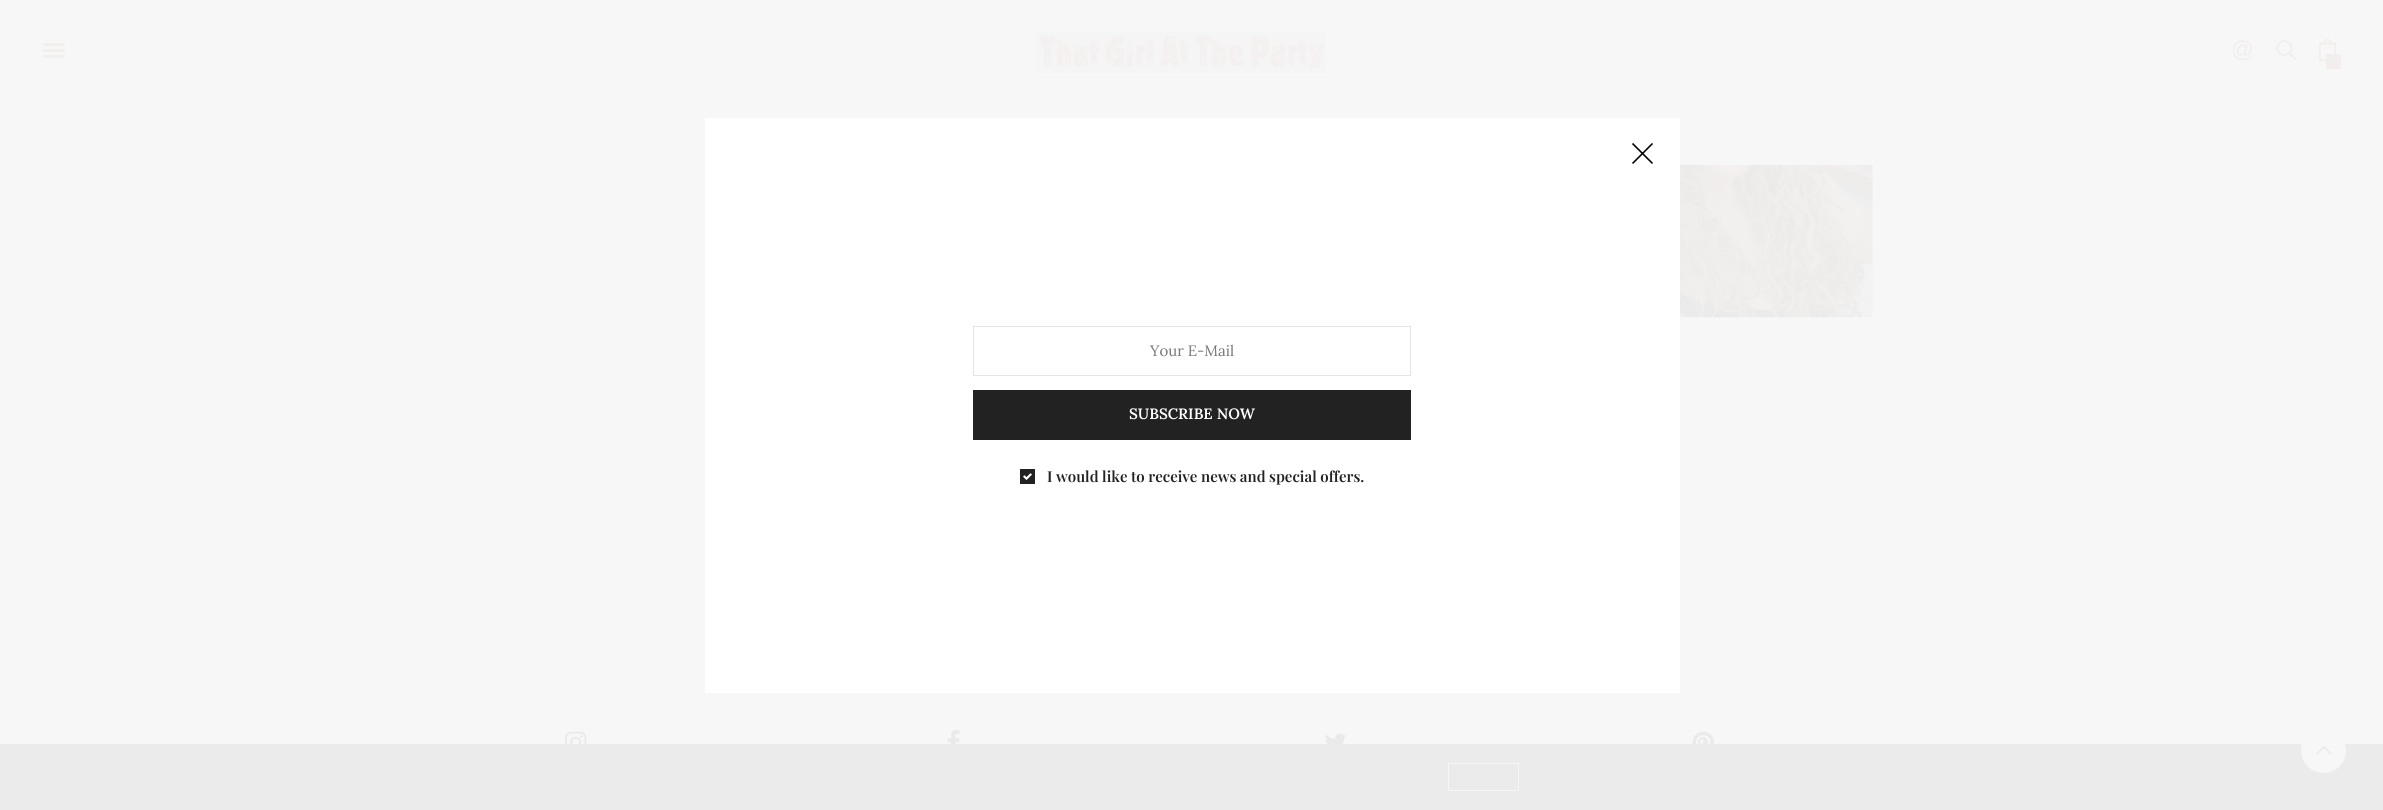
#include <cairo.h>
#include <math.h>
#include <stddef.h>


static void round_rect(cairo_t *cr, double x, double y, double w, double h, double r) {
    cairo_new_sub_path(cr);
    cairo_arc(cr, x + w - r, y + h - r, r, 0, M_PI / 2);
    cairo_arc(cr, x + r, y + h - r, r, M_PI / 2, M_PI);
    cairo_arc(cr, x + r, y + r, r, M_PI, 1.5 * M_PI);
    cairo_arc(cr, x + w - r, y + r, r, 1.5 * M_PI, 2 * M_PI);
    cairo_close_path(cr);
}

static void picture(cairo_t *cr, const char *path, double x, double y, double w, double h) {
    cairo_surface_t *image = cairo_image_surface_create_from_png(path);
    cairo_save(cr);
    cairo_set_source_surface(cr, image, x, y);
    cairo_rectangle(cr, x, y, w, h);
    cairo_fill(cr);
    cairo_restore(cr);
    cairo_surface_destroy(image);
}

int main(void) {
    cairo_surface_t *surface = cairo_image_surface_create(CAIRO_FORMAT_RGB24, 2383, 810);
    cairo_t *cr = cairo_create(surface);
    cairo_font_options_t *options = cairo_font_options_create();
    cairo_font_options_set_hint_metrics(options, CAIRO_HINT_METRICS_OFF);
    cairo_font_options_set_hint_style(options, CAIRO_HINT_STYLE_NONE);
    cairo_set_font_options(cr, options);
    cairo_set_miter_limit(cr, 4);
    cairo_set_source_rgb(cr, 0.965, 0.965, 0.965);
    cairo_paint(cr);
    cairo_set_source_rgb(cr, 0.953, 0.933, 0.933);
    round_rect(cr, 43, 43, 22, 3, 1.5);
    cairo_fill(cr);
    round_rect(cr, 43, 49, 22, 3, 1.5);
    cairo_fill(cr);
    round_rect(cr, 43, 55, 22, 3, 1.5);
    cairo_fill(cr);
    picture(cr, "img1.png", 1036, 32, 290, 41);
    picture(cr, "img2.png", 2233, 40, 20, 20);
    picture(cr, "img3.png", 2276, 40, 20, 20);
    picture(cr, "img4.png", 2319, 39, 17, 22);
    cairo_rectangle(cr, 2326, 54, 15, 15);
    cairo_fill(cr);
    picture(cr, "img5.png", 1680, 165, 193, 153);
    picture(cr, "img6.png", 565, 731, 22, 13);
    picture(cr, "img7.png", 947, 729, 13, 15);
    picture(cr, "img8.png", 1325, 733, 22, 11);
    picture(cr, "img9.png", 1692, 731, 22, 13);
    cairo_set_source_rgb(cr, 1, 1, 1);
    cairo_rectangle(cr, 705, 118, 975, 575);
    cairo_fill(cr);
    cairo_new_path(cr);
    cairo_move_to(cr, 1632.5, 143.5);
    cairo_line_to(cr, 1652.5, 163.5);
    cairo_move_to(cr, 1632.5, 163.5);
    cairo_line_to(cr, 1652.5, 143.5);
    cairo_set_source_rgb(cr, 0, 0, 0);
    cairo_set_line_width(cr, 1.6);
    cairo_stroke(cr);
    cairo_rectangle(cr, 973.5, 326.5, 437, 49);
    cairo_set_source_rgb(cr, 0.898, 0.898, 0.898);
    cairo_set_line_width(cr, 1);
    cairo_stroke(cr);
    cairo_select_font_face(cr, "Lora", CAIRO_FONT_SLANT_NORMAL, CAIRO_FONT_WEIGHT_NORMAL);
    cairo_set_font_size(cr, 15);
    cairo_set_source_rgb(cr, 0.463, 0.463, 0.463);
    cairo_move_to(cr, 1150, 356);
    cairo_show_text(cr, "Your E-Mail");
    cairo_set_source_rgb(cr, 0.133, 0.133, 0.133);
    cairo_rectangle(cr, 973, 390, 438, 50);
    cairo_fill(cr);
    cairo_select_font_face(cr, "Lora SemiBold", CAIRO_FONT_SLANT_NORMAL, CAIRO_FONT_WEIGHT_NORMAL);
    cairo_set_source_rgb(cr, 1, 1, 1);
    cairo_move_to(cr, 1129, 419);
    cairo_show_text(cr, "SUBSCRIBE NOW");
    cairo_set_source_rgb(cr, 0.133, 0.133, 0.133);
    cairo_rectangle(cr, 1020, 469, 15, 15);
    cairo_fill(cr);
    picture(cr, "img10.png", 1023, 473, 9, 7);
    cairo_select_font_face(cr, "Playfair Display SemiBold", CAIRO_FONT_SLANT_NORMAL, CAIRO_FONT_WEIGHT_NORMAL);
    cairo_move_to(cr, 1047, 482);
    cairo_show_text(cr, "I would like to receive news and special offers.");
    cairo_set_source_rgb(cr, 0.918, 0.918, 0.918);
    cairo_rectangle(cr, 0, 744, 2383, 66);
    cairo_fill(cr);
    cairo_set_source_rgb(cr, 0.965, 0.965, 0.965);
    cairo_arc(cr, 2323.5, 750.5, 22.5, 0, 2 * M_PI);
    cairo_fill(cr);
    picture(cr, "img11.png", 2316, 746, 15, 9);
    cairo_rectangle(cr, 1448.5, 763.5, 70, 27);
    cairo_stroke(cr);
    cairo_surface_write_to_png(surface, "page.png");
    cairo_font_options_destroy(options);
    cairo_destroy(cr);
    cairo_surface_destroy(surface);
    return 0;
}
